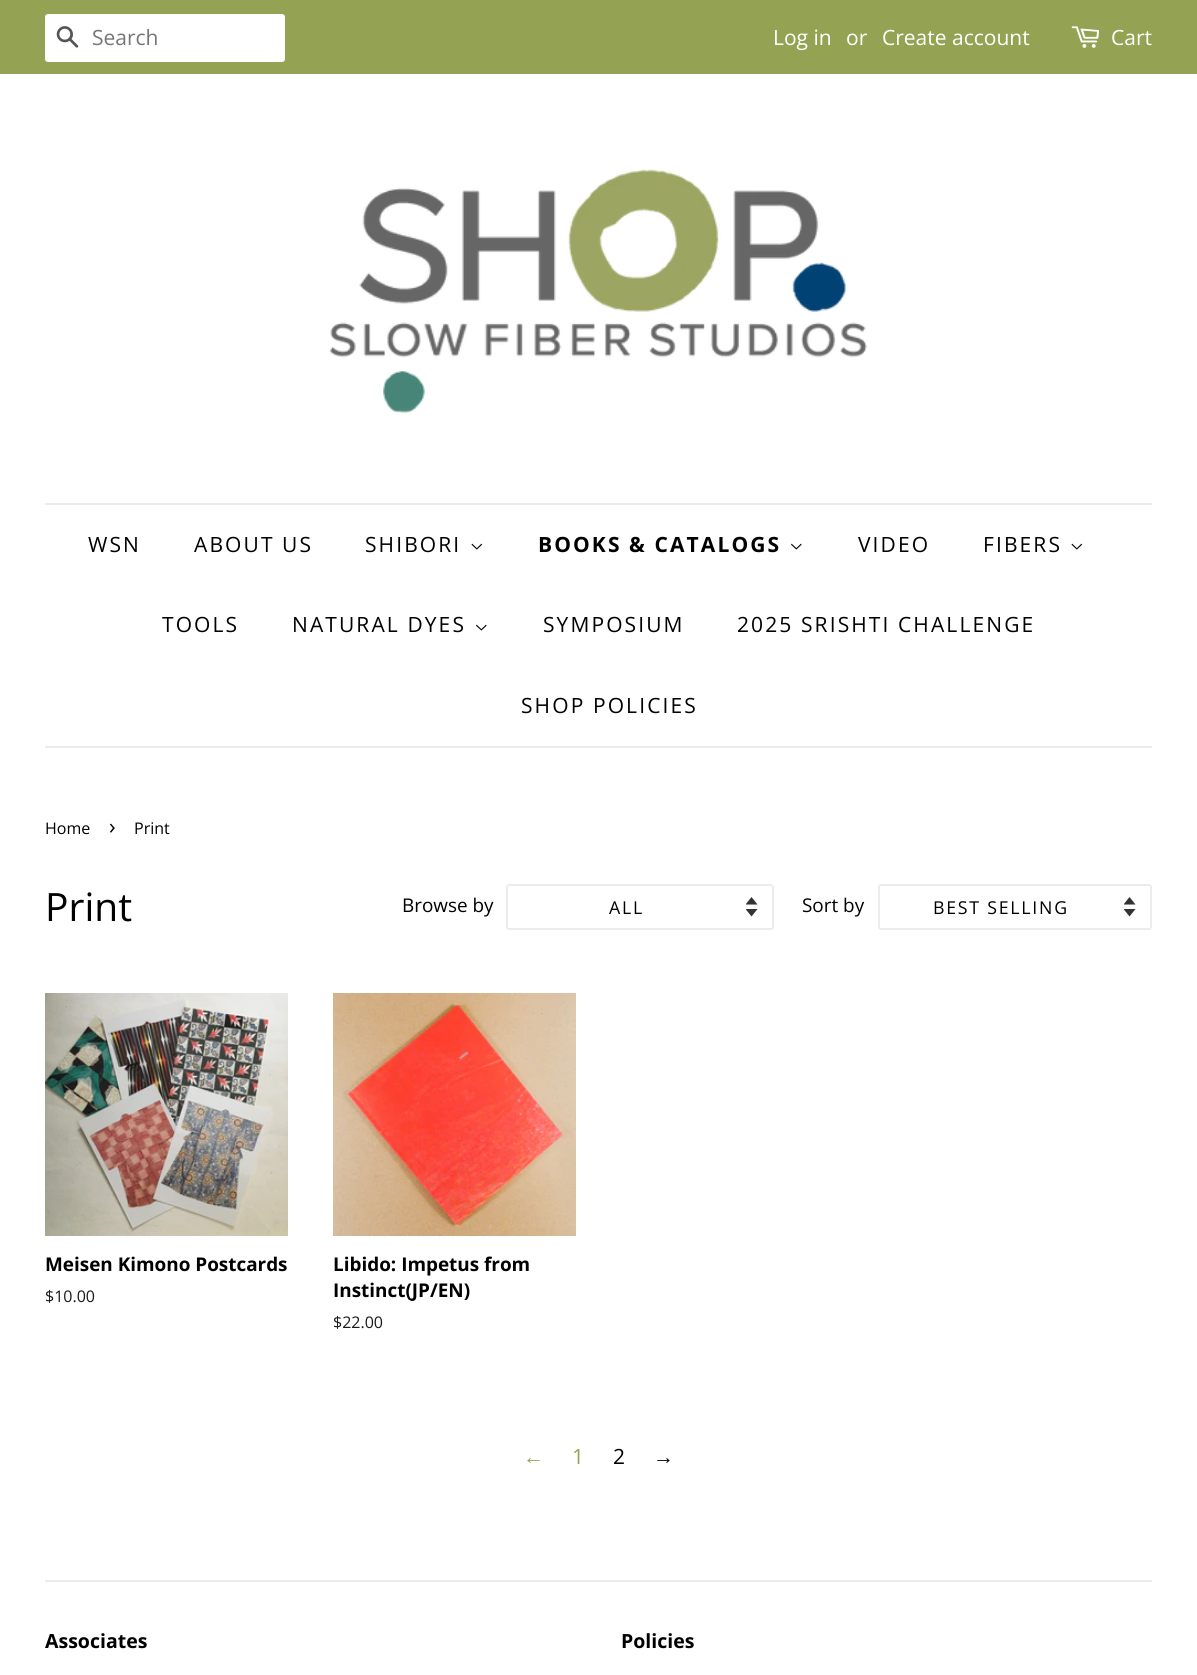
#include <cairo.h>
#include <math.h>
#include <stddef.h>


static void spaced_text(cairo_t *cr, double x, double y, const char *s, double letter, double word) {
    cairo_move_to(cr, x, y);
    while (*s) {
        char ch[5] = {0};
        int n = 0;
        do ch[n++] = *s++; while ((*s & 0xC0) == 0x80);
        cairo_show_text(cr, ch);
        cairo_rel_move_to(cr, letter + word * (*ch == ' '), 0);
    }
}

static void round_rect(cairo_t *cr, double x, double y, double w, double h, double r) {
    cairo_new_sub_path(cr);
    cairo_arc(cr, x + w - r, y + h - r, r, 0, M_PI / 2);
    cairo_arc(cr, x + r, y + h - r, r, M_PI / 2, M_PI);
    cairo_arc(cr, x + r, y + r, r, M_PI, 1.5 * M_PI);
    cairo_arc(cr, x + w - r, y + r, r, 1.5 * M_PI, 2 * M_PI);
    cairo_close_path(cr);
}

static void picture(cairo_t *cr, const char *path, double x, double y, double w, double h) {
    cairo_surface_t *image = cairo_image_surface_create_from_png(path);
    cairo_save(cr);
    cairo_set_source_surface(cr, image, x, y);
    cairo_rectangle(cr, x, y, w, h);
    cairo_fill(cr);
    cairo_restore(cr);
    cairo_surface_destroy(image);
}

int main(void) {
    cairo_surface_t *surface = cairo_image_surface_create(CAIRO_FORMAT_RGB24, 1197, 1675);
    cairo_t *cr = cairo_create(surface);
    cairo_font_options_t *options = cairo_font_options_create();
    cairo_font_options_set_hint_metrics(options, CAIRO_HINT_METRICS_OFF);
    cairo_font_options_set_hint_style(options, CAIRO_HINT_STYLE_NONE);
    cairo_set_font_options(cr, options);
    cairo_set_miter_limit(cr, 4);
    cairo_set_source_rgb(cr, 1, 1, 1);
    cairo_paint(cr);
    cairo_set_source_rgb(cr, 0.58, 0.639, 0.325);
    cairo_rectangle(cr, 0, 0, 1197, 74);
    cairo_fill(cr);
    cairo_set_source_rgb(cr, 1, 1, 1);
    round_rect(cr, 45, 14, 240, 48, 3);
    cairo_fill(cr);
    picture(cr, "img1.png", 56, 26, 23, 22);
    cairo_select_font_face(cr, "Open Sans", CAIRO_FONT_SLANT_NORMAL, CAIRO_FONT_WEIGHT_NORMAL);
    cairo_set_font_size(cr, 21);
    cairo_set_source_rgb(cr, 0.459, 0.459, 0.459);
    cairo_move_to(cr, 92, 45);
    cairo_show_text(cr, "Search");
    cairo_set_source_rgb(cr, 1, 1, 1);
    cairo_move_to(cr, 773, 45);
    cairo_show_text(cr, "Log in");
    cairo_move_to(cr, 846, 45);
    cairo_show_text(cr, "or");
    cairo_move_to(cr, 882, 45);
    cairo_show_text(cr, "Create account");
    picture(cr, "img2.png", 1071, 26, 29, 22);
    cairo_move_to(cr, 1111, 45);
    cairo_show_text(cr, "Cart");
    picture(cr, "img3.png", 329, 169, 538, 245);
    cairo_set_source_rgb(cr, 0.922, 0.922, 0.922);
    cairo_rectangle(cr, 45, 503, 1107, 2);
    cairo_fill(cr);
    cairo_rectangle(cr, 45, 746, 1107, 2);
    cairo_fill(cr);
    cairo_set_source_rgb(cr, 0, 0, 0);
    spaced_text(cr, 88, 552, "WSN", 2.1, 0);
    spaced_text(cr, 194, 552, "ABOUT US", 2.1, 0);
    spaced_text(cr, 365, 552, "SHIBORI", 2.1, 0);
    picture(cr, "img4.png", 471, 543, 11, 7);
    cairo_select_font_face(cr, "Open Sans", CAIRO_FONT_SLANT_NORMAL, CAIRO_FONT_WEIGHT_BOLD);
    spaced_text(cr, 538, 552, "BOOKS & CATALOGS", 2.1, 0);
    picture(cr, "img5.png", 791, 543, 11, 7);
    cairo_select_font_face(cr, "Open Sans", CAIRO_FONT_SLANT_NORMAL, CAIRO_FONT_WEIGHT_NORMAL);
    spaced_text(cr, 858, 552, "VIDEO", 2.1, 0);
    spaced_text(cr, 983, 552, "FIBERS", 2.1, 0);
    picture(cr, "img4.png", 1071, 543, 11, 7);
    spaced_text(cr, 162, 632, "TOOLS", 2.1, 0);
    spaced_text(cr, 292, 632, "NATURAL DYES", 2.1, 0);
    picture(cr, "img5.png", 476, 624, 11, 7);
    spaced_text(cr, 543, 632, "SYMPOSIUM", 2.1, 0);
    spaced_text(cr, 737, 632, "2025 SRISHTI CHALLENGE", 2.1, 0);
    spaced_text(cr, 521, 713, "SHOP POLICIES", 2.1, 0);
    cairo_set_font_size(cr, 16);
    cairo_move_to(cr, 45, 834);
    cairo_show_text(cr, "Home");
    cairo_set_font_size(cr, 22);
    cairo_move_to(cr, 109, 834);
    cairo_show_text(cr, "›");
    cairo_set_font_size(cr, 16);
    cairo_move_to(cr, 134, 834);
    cairo_show_text(cr, "Print");
    cairo_set_font_size(cr, 39);
    cairo_move_to(cr, 45, 921);
    cairo_show_text(cr, "Print");
    cairo_set_font_size(cr, 18.9);
    cairo_move_to(cr, 402, 912);
    cairo_show_text(cr, "Browse by");
    picture(cr, "img6.png", 746, 897, 12, 20);
    round_rect(cr, 507, 885, 266, 44, 2);
    cairo_set_source_rgb(cr, 0.922, 0.922, 0.922);
    cairo_stroke(cr);
    cairo_set_font_size(cr, 17.75);
    cairo_set_source_rgb(cr, 0, 0, 0);
    spaced_text(cr, 609, 914, "ALL", 1.75, 0);
    cairo_set_font_size(cr, 18.9);
    cairo_move_to(cr, 802, 912);
    cairo_show_text(cr, "Sort by");
    picture(cr, "img6.png", 1124, 897, 12, 20);
    round_rect(cr, 879, 885, 272, 44, 2);
    cairo_set_source_rgb(cr, 0.922, 0.922, 0.922);
    cairo_stroke(cr);
    cairo_set_font_size(cr, 17.75);
    cairo_set_source_rgb(cr, 0, 0, 0);
    spaced_text(cr, 933, 914, "BEST SELLING", 1.75, 0);
    picture(cr, "img7.png", 45, 993, 243, 243);
    cairo_select_font_face(cr, "Open Sans", CAIRO_FONT_SLANT_NORMAL, CAIRO_FONT_WEIGHT_BOLD);
    cairo_set_font_size(cr, 18.9);
    cairo_move_to(cr, 45, 1271);
    cairo_show_text(cr, "Meisen Kimono Postcards");
    cairo_select_font_face(cr, "Open Sans", CAIRO_FONT_SLANT_NORMAL, CAIRO_FONT_WEIGHT_NORMAL);
    cairo_set_font_size(cr, 16);
    cairo_set_source_rgb(cr, 0.102, 0.102, 0.102);
    cairo_move_to(cr, 45, 1302);
    cairo_show_text(cr, "$10.00");
    picture(cr, "img8.png", 333, 993, 243, 243);
    cairo_select_font_face(cr, "Open Sans", CAIRO_FONT_SLANT_NORMAL, CAIRO_FONT_WEIGHT_BOLD);
    cairo_set_font_size(cr, 18.9);
    cairo_set_source_rgb(cr, 0, 0, 0);
    cairo_move_to(cr, 333, 1271);
    cairo_show_text(cr, "Libido: Impetus from");
    cairo_move_to(cr, 333, 1297);
    cairo_show_text(cr, "Instinct(JP/EN)");
    cairo_select_font_face(cr, "Open Sans", CAIRO_FONT_SLANT_NORMAL, CAIRO_FONT_WEIGHT_NORMAL);
    cairo_set_font_size(cr, 16);
    cairo_set_source_rgb(cr, 0.102, 0.102, 0.102);
    cairo_move_to(cr, 333, 1328);
    cairo_show_text(cr, "$22.00");
    cairo_select_font_face(cr, "Liberation Sans", CAIRO_FONT_SLANT_NORMAL, CAIRO_FONT_WEIGHT_NORMAL);
    cairo_set_font_size(cr, 21);
    cairo_set_source_rgb(cr, 0.58, 0.639, 0.325);
    cairo_move_to(cr, 523, 1464);
    cairo_show_text(cr, "←");
    cairo_select_font_face(cr, "Open Sans", CAIRO_FONT_SLANT_NORMAL, CAIRO_FONT_WEIGHT_NORMAL);
    cairo_move_to(cr, 572, 1464);
    cairo_show_text(cr, "1");
    cairo_set_source_rgb(cr, 0, 0, 0);
    cairo_move_to(cr, 613, 1464);
    cairo_show_text(cr, "2");
    cairo_select_font_face(cr, "Liberation Sans", CAIRO_FONT_SLANT_NORMAL, CAIRO_FONT_WEIGHT_NORMAL);
    cairo_move_to(cr, 653, 1464);
    cairo_show_text(cr, "→");
    cairo_set_source_rgb(cr, 0.922, 0.922, 0.922);
    cairo_rectangle(cr, 45, 1580, 1107, 2);
    cairo_fill(cr);
    cairo_select_font_face(cr, "Open Sans", CAIRO_FONT_SLANT_NORMAL, CAIRO_FONT_WEIGHT_BOLD);
    cairo_set_font_size(cr, 19.5);
    cairo_set_source_rgb(cr, 0, 0, 0);
    cairo_move_to(cr, 45, 1648);
    cairo_show_text(cr, "Associates");
    cairo_move_to(cr, 621, 1648);
    cairo_show_text(cr, "Policies");
    cairo_surface_write_to_png(surface, "page.png");
    cairo_font_options_destroy(options);
    cairo_destroy(cr);
    cairo_surface_destroy(surface);
    return 0;
}
